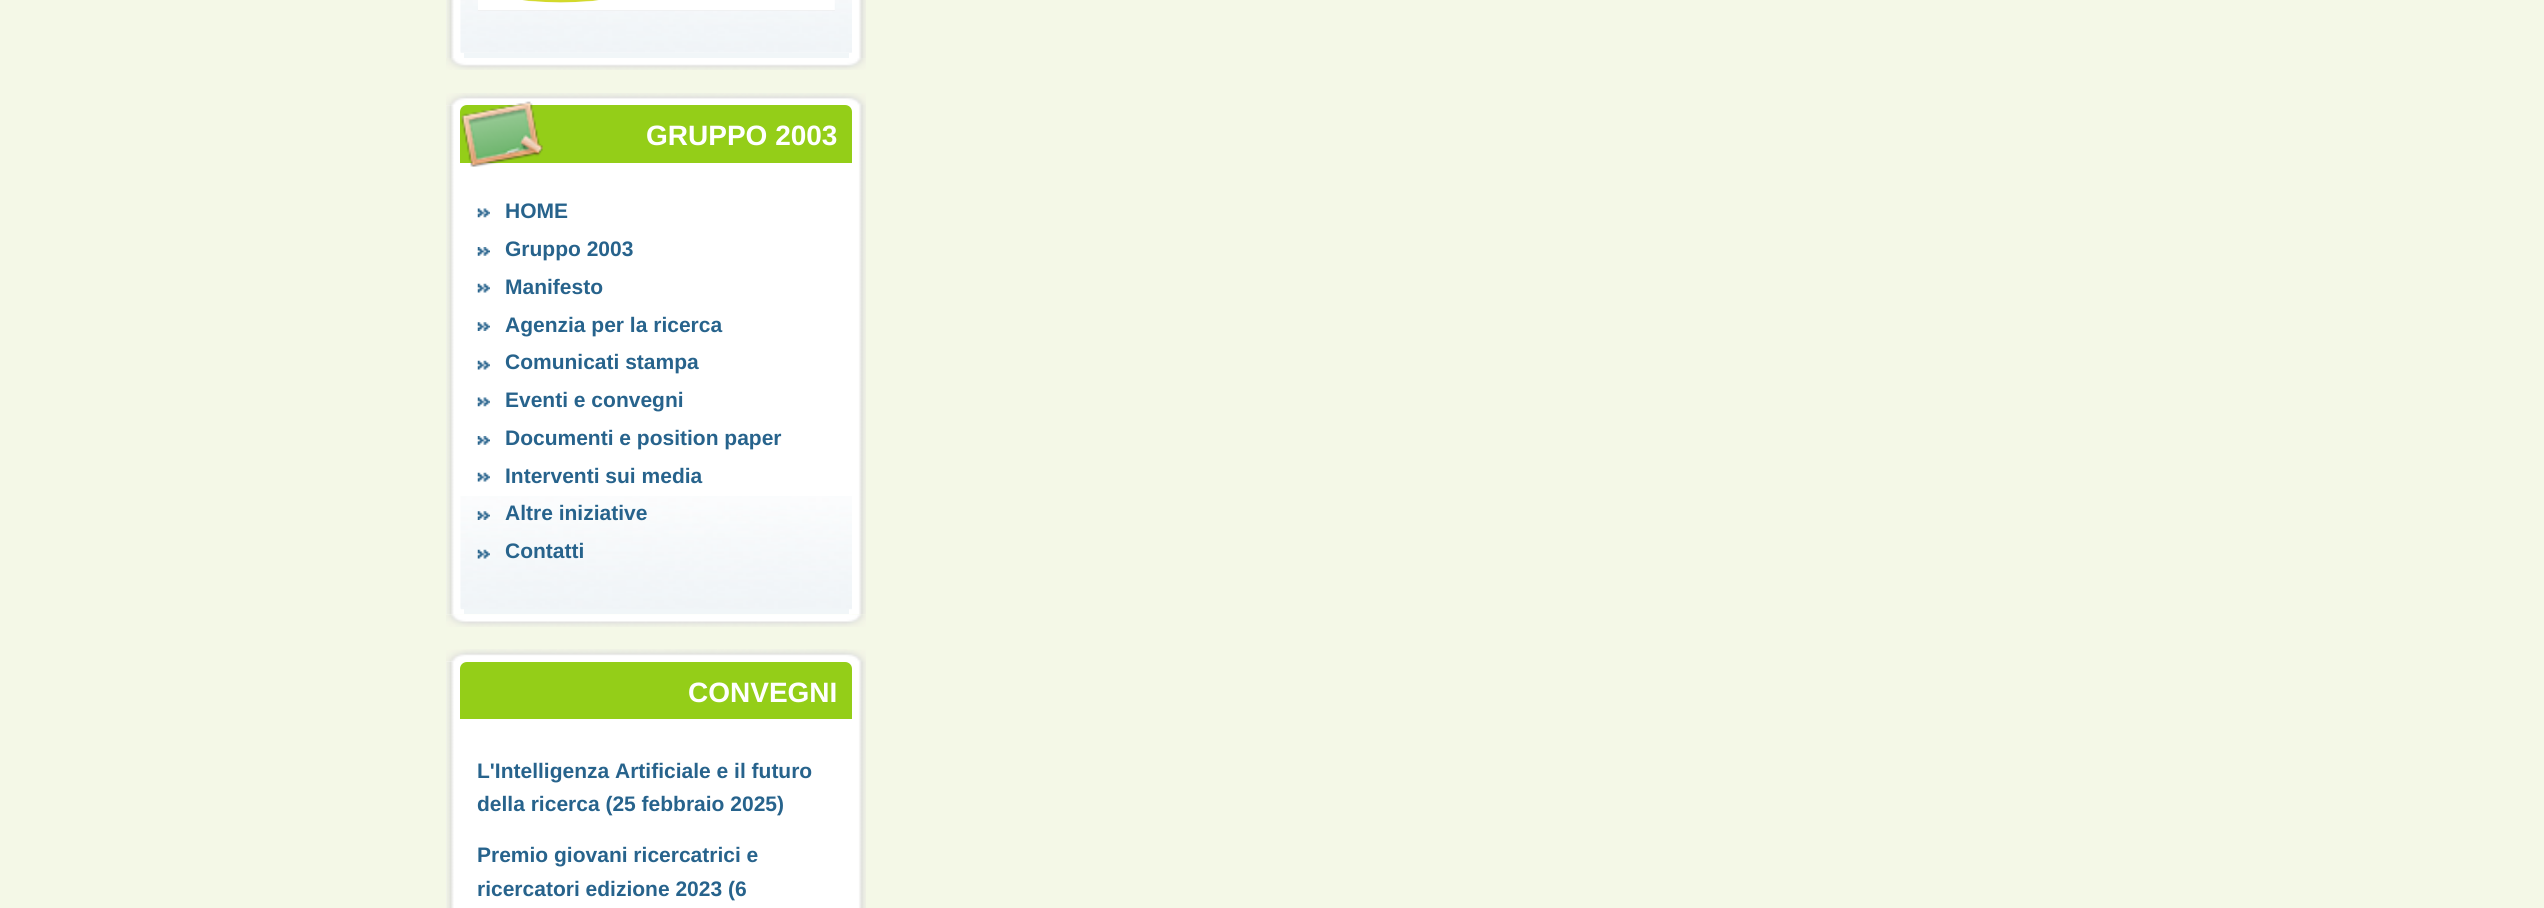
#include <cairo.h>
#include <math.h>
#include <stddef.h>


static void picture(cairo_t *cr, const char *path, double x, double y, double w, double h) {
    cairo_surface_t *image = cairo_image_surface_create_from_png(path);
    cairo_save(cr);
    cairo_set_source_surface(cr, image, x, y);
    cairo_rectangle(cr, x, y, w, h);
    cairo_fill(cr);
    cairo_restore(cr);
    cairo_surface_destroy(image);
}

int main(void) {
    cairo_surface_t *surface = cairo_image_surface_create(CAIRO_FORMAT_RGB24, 2544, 908);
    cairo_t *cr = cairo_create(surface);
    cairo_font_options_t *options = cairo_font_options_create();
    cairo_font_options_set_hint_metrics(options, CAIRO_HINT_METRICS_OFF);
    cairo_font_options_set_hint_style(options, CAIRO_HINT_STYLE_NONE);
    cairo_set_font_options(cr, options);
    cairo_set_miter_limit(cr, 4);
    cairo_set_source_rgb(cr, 0.957, 0.969, 0.906);
    cairo_paint(cr);
    picture(cr, "img1.png", 446, 0, 420, 58);
    picture(cr, "img2.png", 446, 0, 8, 58);
    picture(cr, "img3.png", 460, 0, 392, 53);
    cairo_set_source_rgb(cr, 0.945, 0.961, 0.969);
    cairo_rectangle(cr, 464, 53, 385, 5);
    cairo_fill(cr);
    picture(cr, "img4.png", 478, 0, 357, 11);
    picture(cr, "img5.png", 446, 58, 401, 12);
    picture(cr, "img6.png", 847, 58, 19, 12);
    picture(cr, "img7.png", 446, 93, 20, 20);
    picture(cr, "img8.png", 466, 93, 400, 13);
    picture(cr, "img9.png", 446, 105, 420, 510);
    picture(cr, "img10.png", 446, 105, 406, 510);
    cairo_set_source_rgb(cr, 0.58, 0.808, 0.094);
    cairo_new_path(cr);
    cairo_move_to(cr, 467, 105);
    cairo_line_to(cr, 845, 105);
    cairo_curve_to(cr, 849, 105, 852, 108, 852, 112);
    cairo_line_to(cr, 852, 163);
    cairo_line_to(cr, 460, 163);
    cairo_line_to(cr, 460, 112);
    cairo_curve_to(cr, 460, 108, 463, 105, 467, 105);
    cairo_close_path(cr);
    cairo_fill(cr);
    picture(cr, "img11.png", 461, 101, 82, 66);
    cairo_select_font_face(cr, "Liberation Sans", CAIRO_FONT_SLANT_NORMAL, CAIRO_FONT_WEIGHT_BOLD);
    cairo_set_font_size(cr, 28);
    cairo_set_source_rgb(cr, 1, 1, 1);
    cairo_move_to(cr, 646, 145);
    cairo_show_text(cr, "GRUPPO 2003");
    picture(cr, "img12.png", 460, 496, 392, 114);
    cairo_set_source_rgb(cr, 0.945, 0.961, 0.969);
    cairo_rectangle(cr, 464, 609, 385, 5);
    cairo_fill(cr);
    picture(cr, "img13.png", 477, 208, 13, 10);
    cairo_set_font_size(cr, 21);
    cairo_set_source_rgb(cr, 0.153, 0.388, 0.549);
    cairo_move_to(cr, 505, 218);
    cairo_show_text(cr, "HOME");
    picture(cr, "img14.png", 477, 247, 13, 9);
    cairo_move_to(cr, 505, 256);
    cairo_show_text(cr, "Gruppo 2003");
    picture(cr, "img15.png", 477, 283, 13, 10);
    cairo_move_to(cr, 505, 294);
    cairo_show_text(cr, "Manifesto");
    picture(cr, "img16.png", 477, 322, 13, 9);
    cairo_move_to(cr, 505, 332);
    cairo_show_text(cr, "Agenzia per la ricerca");
    picture(cr, "img15.png", 477, 360, 13, 10);
    cairo_move_to(cr, 505, 369);
    cairo_show_text(cr, "Comunicati stampa");
    picture(cr, "img13.png", 477, 397, 13, 10);
    cairo_move_to(cr, 505, 407);
    cairo_show_text(cr, "Eventi e convegni");
    picture(cr, "img14.png", 477, 436, 13, 9);
    cairo_move_to(cr, 505, 445);
    cairo_show_text(cr, "Documenti e position paper");
    picture(cr, "img15.png", 477, 472, 13, 10);
    cairo_move_to(cr, 505, 483);
    cairo_show_text(cr, "Interventi sui media");
    picture(cr, "img17.png", 477, 511, 13, 9);
    cairo_move_to(cr, 505, 520);
    cairo_show_text(cr, "Altre iniziative");
    picture(cr, "img18.png", 477, 549, 13, 10);
    cairo_move_to(cr, 505, 558);
    cairo_show_text(cr, "Contatti");
    picture(cr, "img19.png", 446, 614, 401, 13);
    picture(cr, "img20.png", 847, 614, 19, 13);
    picture(cr, "img21.png", 446, 649, 401, 20);
    picture(cr, "img22.png", 466, 649, 400, 13);
    picture(cr, "img23.png", 446, 661, 420, 247);
    picture(cr, "img24.png", 446, 662, 8, 246);
    cairo_set_source_rgb(cr, 0.58, 0.808, 0.094);
    cairo_new_path(cr);
    cairo_move_to(cr, 467, 662);
    cairo_line_to(cr, 845, 662);
    cairo_curve_to(cr, 849, 662, 852, 665, 852, 669);
    cairo_line_to(cr, 852, 719);
    cairo_line_to(cr, 460, 719);
    cairo_line_to(cr, 460, 669);
    cairo_curve_to(cr, 460, 665, 463, 662, 467, 662);
    cairo_close_path(cr);
    cairo_fill(cr);
    cairo_set_font_size(cr, 28);
    cairo_set_source_rgb(cr, 1, 1, 1);
    cairo_move_to(cr, 688, 702);
    cairo_show_text(cr, "CONVEGNI");
    cairo_set_font_size(cr, 21);
    cairo_set_source_rgb(cr, 0.153, 0.388, 0.549);
    cairo_move_to(cr, 477, 778);
    cairo_show_text(cr, "L'Intelligenza Artificiale e il futuro");
    cairo_move_to(cr, 477, 811);
    cairo_show_text(cr, "della ricerca (25 febbraio 2025)");
    cairo_move_to(cr, 477, 862);
    cairo_show_text(cr, "Premio giovani ricercatrici e");
    cairo_move_to(cr, 477, 896);
    cairo_show_text(cr, "ricercatori edizione 2023 (6");
    cairo_surface_write_to_png(surface, "page.png");
    cairo_font_options_destroy(options);
    cairo_destroy(cr);
    cairo_surface_destroy(surface);
    return 0;
}
